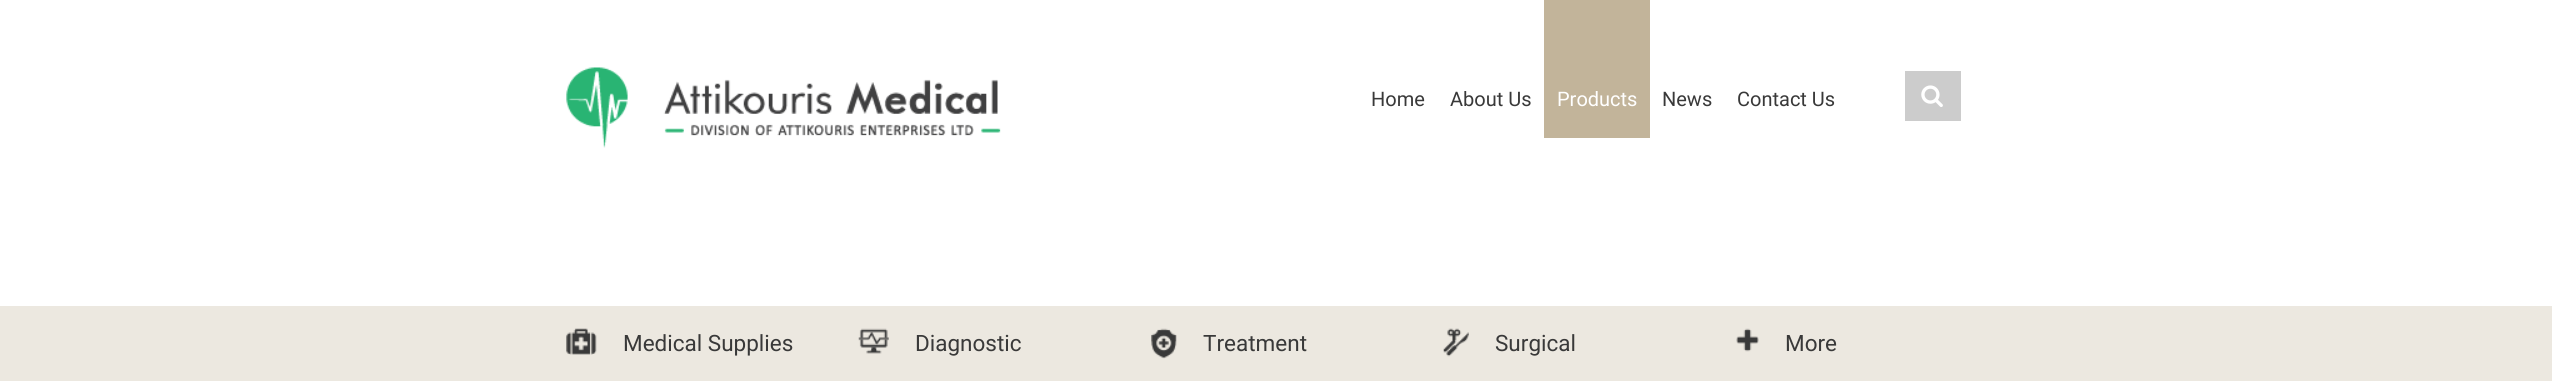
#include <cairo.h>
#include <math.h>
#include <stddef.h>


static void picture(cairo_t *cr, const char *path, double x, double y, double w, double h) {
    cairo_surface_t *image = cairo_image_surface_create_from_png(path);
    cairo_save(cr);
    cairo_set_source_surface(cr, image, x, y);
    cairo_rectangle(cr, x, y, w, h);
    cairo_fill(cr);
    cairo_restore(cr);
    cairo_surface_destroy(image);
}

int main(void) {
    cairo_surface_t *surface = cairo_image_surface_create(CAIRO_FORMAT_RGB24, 2552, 385);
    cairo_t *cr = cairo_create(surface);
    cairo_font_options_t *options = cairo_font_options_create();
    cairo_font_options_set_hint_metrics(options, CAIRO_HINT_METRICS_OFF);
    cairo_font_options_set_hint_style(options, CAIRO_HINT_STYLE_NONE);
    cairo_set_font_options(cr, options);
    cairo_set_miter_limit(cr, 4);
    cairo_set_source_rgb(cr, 1, 1, 1);
    cairo_paint(cr);
    picture(cr, "img1.png", 566, 67, 435, 81);
    cairo_select_font_face(cr, "Roboto", CAIRO_FONT_SLANT_NORMAL, CAIRO_FONT_WEIGHT_NORMAL);
    cairo_set_font_size(cr, 20);
    cairo_set_source_rgb(cr, 0.224, 0.224, 0.224);
    cairo_move_to(cr, 1371, 106);
    cairo_show_text(cr, "Home");
    cairo_move_to(cr, 1450, 106);
    cairo_show_text(cr, "About Us");
    cairo_set_source_rgb(cr, 0.761, 0.706, 0.604);
    cairo_rectangle(cr, 1544, 0, 106, 138);
    cairo_fill(cr);
    cairo_set_source_rgb(cr, 1, 1, 1);
    cairo_move_to(cr, 1557, 106);
    cairo_show_text(cr, "Products");
    cairo_set_source_rgb(cr, 0.224, 0.224, 0.224);
    cairo_move_to(cr, 1662, 106);
    cairo_show_text(cr, "News");
    cairo_move_to(cr, 1737, 106);
    cairo_show_text(cr, "Contact Us");
    cairo_set_source_rgb(cr, 0.8, 0.8, 0.8);
    cairo_rectangle(cr, 1905, 71, 56, 50);
    cairo_fill(cr);
    picture(cr, "img2.png", 1921, 85, 22, 22);
    cairo_set_source_rgb(cr, 0.925, 0.91, 0.878);
    cairo_rectangle(cr, 0, 306, 2552, 75);
    cairo_fill(cr);
    picture(cr, "img3.png", 566, 328, 31, 27);
    cairo_set_font_size(cr, 22.5);
    cairo_set_source_rgb(cr, 0.224, 0.224, 0.224);
    cairo_move_to(cr, 623, 351);
    cairo_show_text(cr, "Medical Supplies");
    picture(cr, "img4.png", 858, 328, 31, 26);
    cairo_move_to(cr, 915, 351);
    cairo_show_text(cr, "Diagnostic");
    picture(cr, "img5.png", 1151, 328, 26, 31);
    cairo_move_to(cr, 1203, 351);
    cairo_show_text(cr, "Treatment");
    picture(cr, "img6.png", 1443, 328, 26, 29);
    cairo_move_to(cr, 1495, 351);
    cairo_show_text(cr, "Surgical");
    picture(cr, "img7.png", 1736, 328, 23, 24);
    cairo_move_to(cr, 1785, 351);
    cairo_show_text(cr, "More");
    cairo_surface_write_to_png(surface, "page.png");
    cairo_font_options_destroy(options);
    cairo_destroy(cr);
    cairo_surface_destroy(surface);
    return 0;
}
